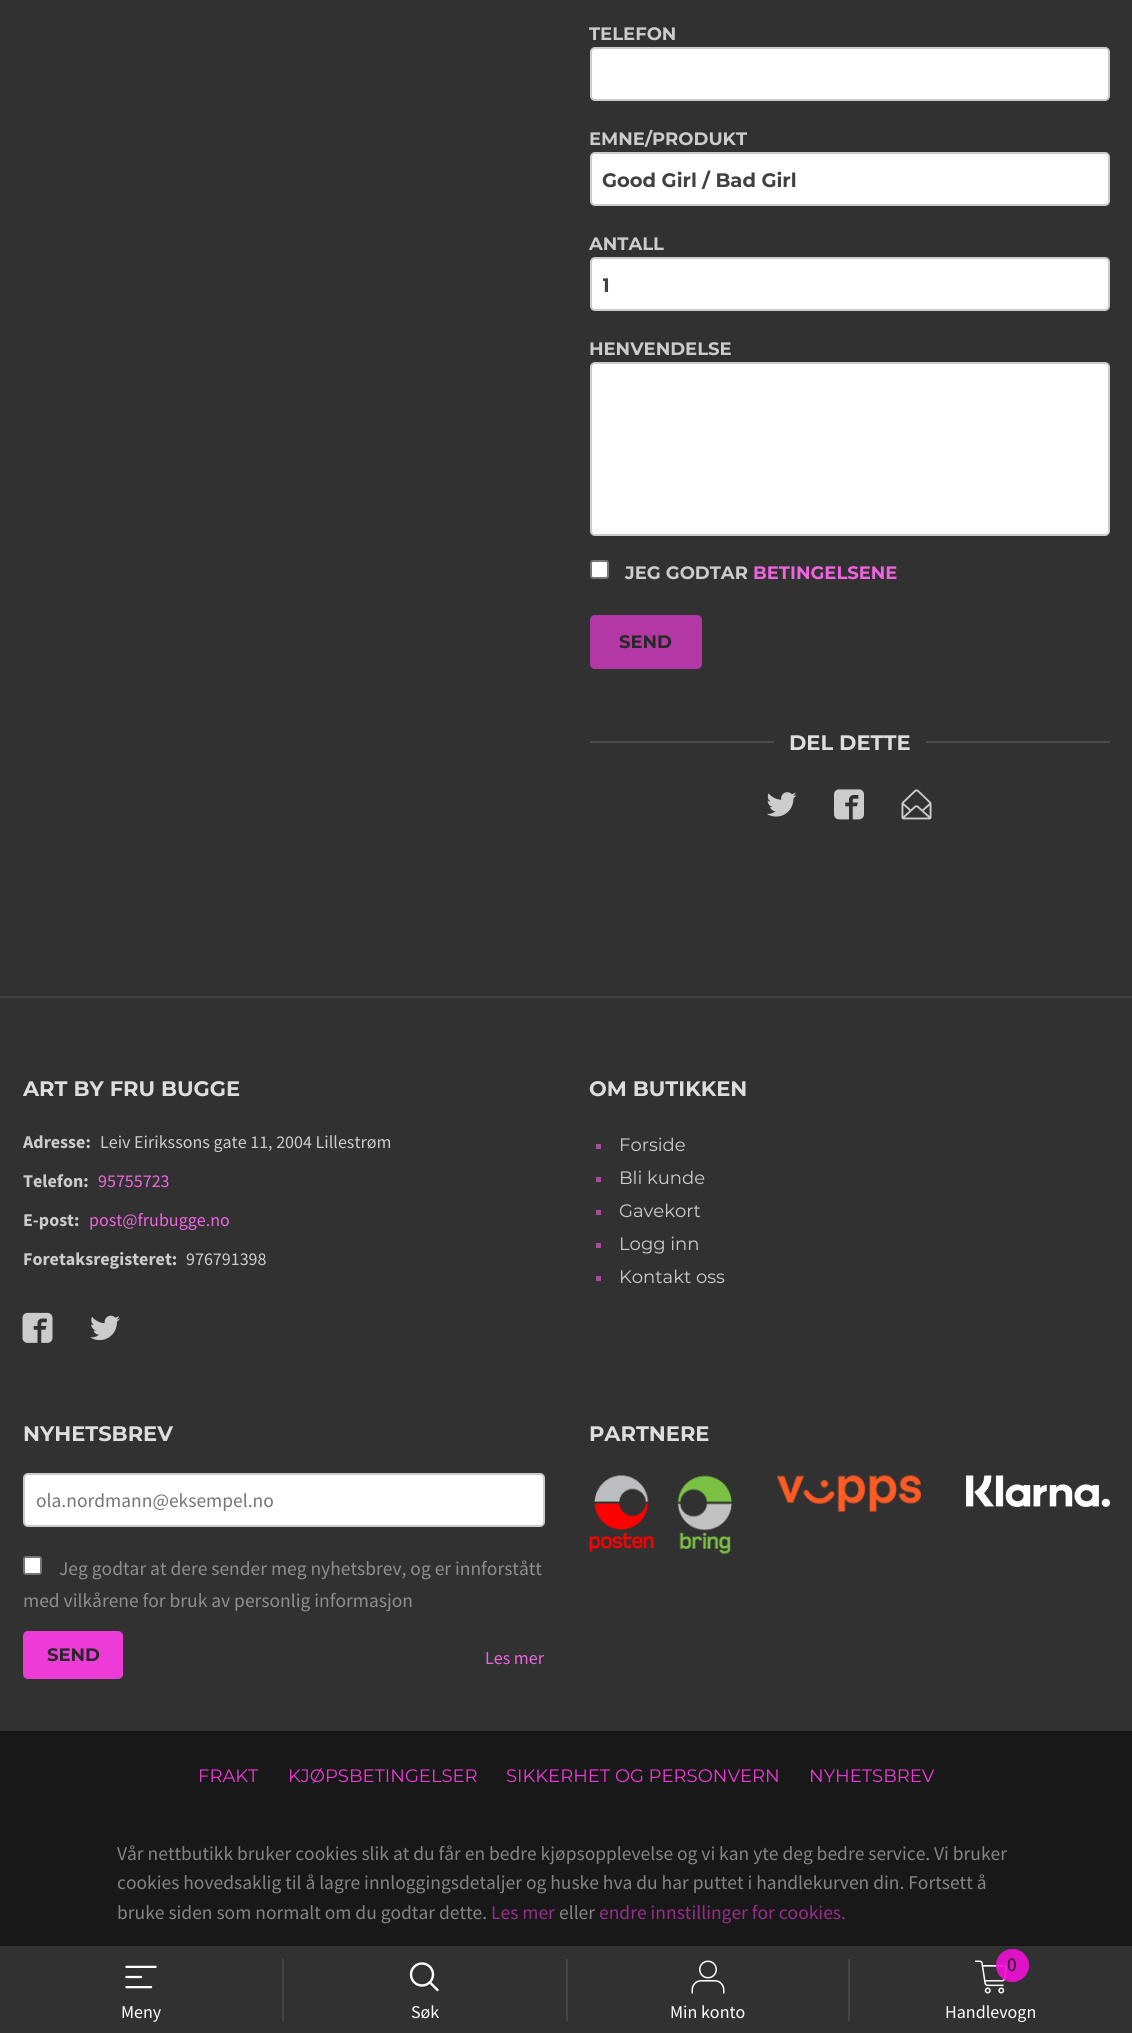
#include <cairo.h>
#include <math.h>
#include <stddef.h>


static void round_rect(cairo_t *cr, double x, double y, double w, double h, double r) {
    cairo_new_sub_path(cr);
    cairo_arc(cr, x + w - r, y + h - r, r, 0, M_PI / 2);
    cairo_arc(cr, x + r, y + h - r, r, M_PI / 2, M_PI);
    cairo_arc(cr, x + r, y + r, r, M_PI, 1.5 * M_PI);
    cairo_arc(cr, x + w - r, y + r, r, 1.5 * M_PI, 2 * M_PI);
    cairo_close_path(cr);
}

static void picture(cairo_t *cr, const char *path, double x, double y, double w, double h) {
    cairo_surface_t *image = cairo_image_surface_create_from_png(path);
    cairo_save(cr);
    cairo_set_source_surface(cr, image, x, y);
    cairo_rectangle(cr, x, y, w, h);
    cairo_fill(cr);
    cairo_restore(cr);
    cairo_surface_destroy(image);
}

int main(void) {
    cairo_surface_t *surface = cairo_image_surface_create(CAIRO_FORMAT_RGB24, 1132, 2033);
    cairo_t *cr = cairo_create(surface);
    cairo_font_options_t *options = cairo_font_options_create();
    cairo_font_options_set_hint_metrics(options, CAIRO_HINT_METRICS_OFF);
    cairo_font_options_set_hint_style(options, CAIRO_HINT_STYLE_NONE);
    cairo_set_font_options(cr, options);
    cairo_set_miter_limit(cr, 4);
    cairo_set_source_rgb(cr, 0.192, 0.192, 0.192);
    cairo_paint(cr);
    cairo_select_font_face(cr, "Montserrat", CAIRO_FONT_SLANT_NORMAL, CAIRO_FONT_WEIGHT_BOLD);
    cairo_set_font_size(cr, 18);
    cairo_set_source_rgb(cr, 0.8, 0.8, 0.8);
    cairo_move_to(cr, 589, 40);
    cairo_show_text(cr, "TELEFON");
    cairo_set_source_rgb(cr, 1, 1, 1);
    round_rect(cr, 591, 48, 518, 52, 4);
    cairo_fill_preserve(cr);
    cairo_set_source_rgb(cr, 0.8, 0.8, 0.8);
    cairo_stroke(cr);
    cairo_move_to(cr, 589, 145);
    cairo_show_text(cr, "EMNE/PRODUKT");
    cairo_set_source_rgb(cr, 1, 1, 1);
    round_rect(cr, 591, 153, 518, 52, 4);
    cairo_fill_preserve(cr);
    cairo_set_source_rgb(cr, 0.8, 0.8, 0.8);
    cairo_stroke(cr);
    cairo_set_font_size(cr, 19.5);
    cairo_set_source_rgb(cr, 0.251, 0.251, 0.251);
    cairo_move_to(cr, 602, 187);
    cairo_show_text(cr, "Good Girl / Bad Girl");
    cairo_set_font_size(cr, 18);
    cairo_set_source_rgb(cr, 0.8, 0.8, 0.8);
    cairo_move_to(cr, 589, 250);
    cairo_show_text(cr, "ANTALL");
    cairo_set_source_rgb(cr, 1, 1, 1);
    round_rect(cr, 591, 258, 518, 52, 4);
    cairo_fill_preserve(cr);
    cairo_set_source_rgb(cr, 0.8, 0.8, 0.8);
    cairo_stroke(cr);
    cairo_save(cr);
    cairo_rectangle(cr, 603, 272, 471, 24);
    cairo_clip(cr);
    cairo_set_font_size(cr, 19.5);
    cairo_set_source_rgb(cr, 0.251, 0.251, 0.251);
    cairo_move_to(cr, 602, 292);
    cairo_show_text(cr, "1");
    cairo_restore(cr);
    cairo_move_to(cr, 589, 355);
    cairo_show_text(cr, "HENVENDELSE");
    cairo_set_source_rgb(cr, 1, 1, 1);
    round_rect(cr, 591, 363, 518, 172, 4);
    cairo_fill_preserve(cr);
    cairo_set_source_rgb(cr, 0.8, 0.8, 0.8);
    cairo_stroke(cr);
    cairo_set_source_rgb(cr, 1, 1, 1);
    round_rect(cr, 591, 561, 17, 17, 2);
    cairo_fill_preserve(cr);
    cairo_set_source_rgb(cr, 0.463, 0.463, 0.463);
    cairo_stroke(cr);
    cairo_set_source_rgb(cr, 0.8, 0.8, 0.8);
    cairo_move_to(cr, 625, 579);
    cairo_show_text(cr, "JEG GODTAR");
    cairo_set_source_rgb(cr, 0.937, 0.396, 0.875);
    cairo_move_to(cr, 753, 579);
    cairo_show_text(cr, "BETINGELSENE");
    cairo_set_source_rgb(cr, 0.702, 0.22, 0.647);
    round_rect(cr, 590, 615, 112, 54, 5);
    cairo_fill(cr);
    cairo_set_source_rgb(cr, 0.157, 0.157, 0.157);
    cairo_move_to(cr, 619, 648);
    cairo_show_text(cr, "SEND");
    cairo_set_source_rgb(cr, 0.294, 0.294, 0.294);
    cairo_rectangle(cr, 590, 741, 520, 2);
    cairo_fill(cr);
    cairo_set_source_rgb(cr, 0.192, 0.192, 0.192);
    cairo_rectangle(cr, 774, 741, 152, 2);
    cairo_fill(cr);
    cairo_set_font_size(cr, 21);
    cairo_set_source_rgb(cr, 0.871, 0.871, 0.871);
    cairo_move_to(cr, 789, 750);
    cairo_show_text(cr, "DEL DETTE");
    picture(cr, "img1.png", 766, 792, 31, 25);
    picture(cr, "img2.png", 834, 789, 30, 31);
    picture(cr, "img3.png", 901, 789, 31, 31);
    cairo_set_source_rgb(cr, 0.255, 0.255, 0.255);
    cairo_rectangle(cr, 0, 996, 1132, 2);
    cairo_fill(cr);
    cairo_set_source_rgb(cr, 0.871, 0.871, 0.871);
    cairo_move_to(cr, 23, 1096);
    cairo_show_text(cr, "ART BY FRU BUGGE");
    cairo_select_font_face(cr, "Source Sans Pro", CAIRO_FONT_SLANT_NORMAL, CAIRO_FONT_WEIGHT_BOLD);
    cairo_set_font_size(cr, 18);
    cairo_set_source_rgb(cr, 0.8, 0.8, 0.8);
    cairo_move_to(cr, 23, 1148);
    cairo_show_text(cr, "Adresse:");
    cairo_select_font_face(cr, "Source Sans Pro", CAIRO_FONT_SLANT_NORMAL, CAIRO_FONT_WEIGHT_NORMAL);
    cairo_move_to(cr, 100, 1148);
    cairo_show_text(cr, "Leiv Eirikssons gate 11, 2004 Lillestrøm");
    cairo_select_font_face(cr, "Source Sans Pro", CAIRO_FONT_SLANT_NORMAL, CAIRO_FONT_WEIGHT_BOLD);
    cairo_move_to(cr, 23, 1187);
    cairo_show_text(cr, "Telefon:");
    cairo_select_font_face(cr, "Source Sans Pro", CAIRO_FONT_SLANT_NORMAL, CAIRO_FONT_WEIGHT_NORMAL);
    cairo_set_source_rgb(cr, 0.937, 0.396, 0.875);
    cairo_move_to(cr, 98, 1187);
    cairo_show_text(cr, "95755723");
    cairo_select_font_face(cr, "Source Sans Pro", CAIRO_FONT_SLANT_NORMAL, CAIRO_FONT_WEIGHT_BOLD);
    cairo_set_source_rgb(cr, 0.8, 0.8, 0.8);
    cairo_move_to(cr, 23, 1226);
    cairo_show_text(cr, "E-post:");
    cairo_select_font_face(cr, "Source Sans Pro", CAIRO_FONT_SLANT_NORMAL, CAIRO_FONT_WEIGHT_NORMAL);
    cairo_set_source_rgb(cr, 0.937, 0.396, 0.875);
    cairo_move_to(cr, 89, 1226);
    cairo_show_text(cr, "post@frubugge.no");
    cairo_select_font_face(cr, "Source Sans Pro", CAIRO_FONT_SLANT_NORMAL, CAIRO_FONT_WEIGHT_BOLD);
    cairo_set_source_rgb(cr, 0.8, 0.8, 0.8);
    cairo_move_to(cr, 23, 1265);
    cairo_show_text(cr, "Foretaksregisteret:");
    cairo_select_font_face(cr, "Source Sans Pro", CAIRO_FONT_SLANT_NORMAL, CAIRO_FONT_WEIGHT_NORMAL);
    cairo_move_to(cr, 186, 1265);
    cairo_show_text(cr, "976791398");
    picture(cr, "img4.png", 22, 1312, 31, 31);
    picture(cr, "img5.png", 90, 1315, 30, 26);
    cairo_select_font_face(cr, "Montserrat", CAIRO_FONT_SLANT_NORMAL, CAIRO_FONT_WEIGHT_BOLD);
    cairo_set_font_size(cr, 21);
    cairo_set_source_rgb(cr, 0.871, 0.871, 0.871);
    cairo_move_to(cr, 589, 1096);
    cairo_show_text(cr, "OM BUTIKKEN");
    cairo_set_source_rgb(cr, 0.639, 0.314, 0.6);
    cairo_rectangle(cr, 596, 1144, 5, 5);
    cairo_fill(cr);
    cairo_select_font_face(cr, "Montserrat", CAIRO_FONT_SLANT_NORMAL, CAIRO_FONT_WEIGHT_NORMAL);
    cairo_set_font_size(cr, 18);
    cairo_set_source_rgb(cr, 0.8, 0.8, 0.8);
    cairo_move_to(cr, 619, 1151);
    cairo_show_text(cr, "Forside");
    cairo_set_source_rgb(cr, 0.639, 0.314, 0.6);
    cairo_rectangle(cr, 596, 1177, 5, 5);
    cairo_fill(cr);
    cairo_set_source_rgb(cr, 0.8, 0.8, 0.8);
    cairo_move_to(cr, 619, 1184);
    cairo_show_text(cr, "Bli kunde");
    cairo_set_source_rgb(cr, 0.639, 0.314, 0.6);
    cairo_rectangle(cr, 596, 1210, 5, 5);
    cairo_fill(cr);
    cairo_set_source_rgb(cr, 0.8, 0.8, 0.8);
    cairo_move_to(cr, 619, 1217);
    cairo_show_text(cr, "Gavekort");
    cairo_set_source_rgb(cr, 0.639, 0.314, 0.6);
    cairo_rectangle(cr, 596, 1243, 5, 5);
    cairo_fill(cr);
    cairo_set_source_rgb(cr, 0.8, 0.8, 0.8);
    cairo_move_to(cr, 619, 1250);
    cairo_show_text(cr, "Logg inn");
    cairo_set_source_rgb(cr, 0.639, 0.314, 0.6);
    cairo_rectangle(cr, 596, 1276, 5, 5);
    cairo_fill(cr);
    cairo_set_source_rgb(cr, 0.8, 0.8, 0.8);
    cairo_move_to(cr, 619, 1283);
    cairo_show_text(cr, "Kontakt oss");
    cairo_select_font_face(cr, "Montserrat", CAIRO_FONT_SLANT_NORMAL, CAIRO_FONT_WEIGHT_BOLD);
    cairo_set_font_size(cr, 21);
    cairo_set_source_rgb(cr, 0.871, 0.871, 0.871);
    cairo_move_to(cr, 23, 1441);
    cairo_show_text(cr, "NYHETSBREV");
    cairo_set_source_rgb(cr, 1, 1, 1);
    round_rect(cr, 24, 1474, 520, 52, 4);
    cairo_fill_preserve(cr);
    cairo_set_source_rgb(cr, 0.8, 0.8, 0.8);
    cairo_stroke(cr);
    cairo_select_font_face(cr, "Source Sans Pro", CAIRO_FONT_SLANT_NORMAL, CAIRO_FONT_WEIGHT_NORMAL);
    cairo_set_font_size(cr, 19.5);
    cairo_set_source_rgb(cr, 0.459, 0.459, 0.459);
    cairo_move_to(cr, 36, 1507);
    cairo_show_text(cr, "ola.nordmann@eksempel.no");
    cairo_set_source_rgb(cr, 1, 1, 1);
    round_rect(cr, 24, 1557, 17, 17, 2);
    cairo_fill_preserve(cr);
    cairo_set_source_rgb(cr, 0.463, 0.463, 0.463);
    cairo_stroke(cr);
    cairo_set_source_rgb(cr, 0.557, 0.557, 0.557);
    cairo_move_to(cr, 59, 1575);
    cairo_show_text(cr, "Jeg godtar at dere sender meg nyhetsbrev, og er innforstått");
    cairo_move_to(cr, 23, 1607);
    cairo_show_text(cr, "med vilkårene for bruk av personlig informasjon");
    cairo_set_source_rgb(cr, 0.922, 0.231, 0.839);
    round_rect(cr, 23, 1631, 100, 48, 5);
    cairo_fill(cr);
    cairo_select_font_face(cr, "Montserrat", CAIRO_FONT_SLANT_NORMAL, CAIRO_FONT_WEIGHT_BOLD);
    cairo_set_font_size(cr, 18);
    cairo_set_source_rgb(cr, 0.157, 0.157, 0.157);
    cairo_move_to(cr, 47, 1661);
    cairo_show_text(cr, "SEND");
    cairo_select_font_face(cr, "Source Sans Pro", CAIRO_FONT_SLANT_NORMAL, CAIRO_FONT_WEIGHT_NORMAL);
    cairo_set_source_rgb(cr, 0.937, 0.396, 0.875);
    cairo_move_to(cr, 485, 1664);
    cairo_show_text(cr, "Les mer");
    cairo_select_font_face(cr, "Montserrat", CAIRO_FONT_SLANT_NORMAL, CAIRO_FONT_WEIGHT_BOLD);
    cairo_set_font_size(cr, 21);
    cairo_set_source_rgb(cr, 0.871, 0.871, 0.871);
    cairo_move_to(cr, 589, 1441);
    cairo_show_text(cr, "PARTNERE");
    picture(cr, "img6.png", 589, 1475, 143, 79);
    picture(cr, "img7.png", 777, 1475, 144, 37);
    picture(cr, "img8.png", 966, 1475, 144, 32);
    cairo_set_source_rgb(cr, 0.094, 0.094, 0.094);
    cairo_rectangle(cr, 0, 1731, 1132, 215);
    cairo_fill(cr);
    cairo_select_font_face(cr, "Montserrat", CAIRO_FONT_SLANT_NORMAL, CAIRO_FONT_WEIGHT_NORMAL);
    cairo_set_font_size(cr, 18);
    cairo_set_source_rgb(cr, 0.922, 0.231, 0.839);
    cairo_move_to(cr, 198, 1782);
    cairo_show_text(cr, "FRAKT");
    cairo_move_to(cr, 288, 1782);
    cairo_show_text(cr, "KJØPSBETINGELSER");
    cairo_move_to(cr, 506, 1782);
    cairo_show_text(cr, "SIKKERHET OG PERSONVERN");
    cairo_move_to(cr, 809, 1782);
    cairo_show_text(cr, "NYHETSBREV");
    cairo_select_font_face(cr, "Source Sans Pro", CAIRO_FONT_SLANT_NORMAL, CAIRO_FONT_WEIGHT_NORMAL);
    cairo_set_font_size(cr, 19.5);
    cairo_set_source_rgb(cr, 0.518, 0.518, 0.518);
    cairo_move_to(cr, 117, 1860);
    cairo_show_text(cr, "Vår nettbutikk bruker cookies slik at du får en bedre kjøpsopplevelse og vi kan yte deg bedre service. Vi bruker");
    cairo_move_to(cr, 117, 1889);
    cairo_show_text(cr, "cookies hovedsaklig til å lagre innloggingsdetaljer og huske hva du har puttet i handlekurven din. Fortsett å");
    cairo_move_to(cr, 117, 1919);
    cairo_show_text(cr, "bruke siden som normalt om du godtar dette.");
    cairo_set_source_rgb(cr, 0.592, 0.176, 0.541);
    cairo_move_to(cr, 491, 1919);
    cairo_show_text(cr, "Les mer");
    cairo_set_source_rgb(cr, 0.518, 0.518, 0.518);
    cairo_move_to(cr, 559, 1919);
    cairo_show_text(cr, "eller");
    cairo_set_source_rgb(cr, 0.592, 0.176, 0.541);
    cairo_move_to(cr, 599, 1919);
    cairo_show_text(cr, "endre innstillinger for cookies.");
    picture(cr, "img9.png", 125, 1965, 32, 24);
    cairo_set_font_size(cr, 18);
    cairo_set_source_rgb(cr, 1, 1, 1);
    cairo_move_to(cr, 121, 2018);
    cairo_show_text(cr, "Meny");
    cairo_set_source_rgb(cr, 0.271, 0.271, 0.271);
    cairo_rectangle(cr, 282, 1959, 2, 62);
    cairo_fill(cr);
    cairo_arc(cr, 422, 1974.5, 11, 0, 2 * M_PI);
    cairo_set_source_rgb(cr, 1, 1, 1);
    cairo_set_line_width(cr, 2.4);
    cairo_stroke(cr);
    cairo_new_path(cr);
    cairo_move_to(cr, 437.5, 1990);
    cairo_line_to(cr, 430, 1982.5);
    cairo_set_line_cap(cr, CAIRO_LINE_CAP_ROUND);
    cairo_stroke(cr);
    cairo_move_to(cr, 411, 2018);
    cairo_show_text(cr, "Søk");
    cairo_set_source_rgb(cr, 0.271, 0.271, 0.271);
    cairo_rectangle(cr, 566, 1959, 2, 62);
    cairo_fill(cr);
    picture(cr, "img10.png", 691, 1960, 34, 34);
    cairo_set_source_rgb(cr, 1, 1, 1);
    cairo_move_to(cr, 670, 2018);
    cairo_show_text(cr, "Min konto");
    cairo_set_source_rgb(cr, 0.271, 0.271, 0.271);
    cairo_rectangle(cr, 848, 1959, 2, 62);
    cairo_fill(cr);
    picture(cr, "img11.png", 975, 1960, 32, 34);
    cairo_set_source_rgba(cr, 0.953, 0.059, 0.839, 0.9);
    cairo_arc(cr, 1012.5, 1965.5, 16.5, 0, 2 * M_PI);
    cairo_fill(cr);
    cairo_set_font_size(cr, 19.5);
    cairo_set_source_rgb(cr, 0.129, 0.129, 0.129);
    cairo_move_to(cr, 1007, 1971);
    cairo_show_text(cr, "0");
    cairo_set_font_size(cr, 18);
    cairo_set_source_rgb(cr, 1, 1, 1);
    cairo_move_to(cr, 945, 2018);
    cairo_show_text(cr, "Handlevogn");
    cairo_surface_write_to_png(surface, "page.png");
    cairo_font_options_destroy(options);
    cairo_destroy(cr);
    cairo_surface_destroy(surface);
    return 0;
}
